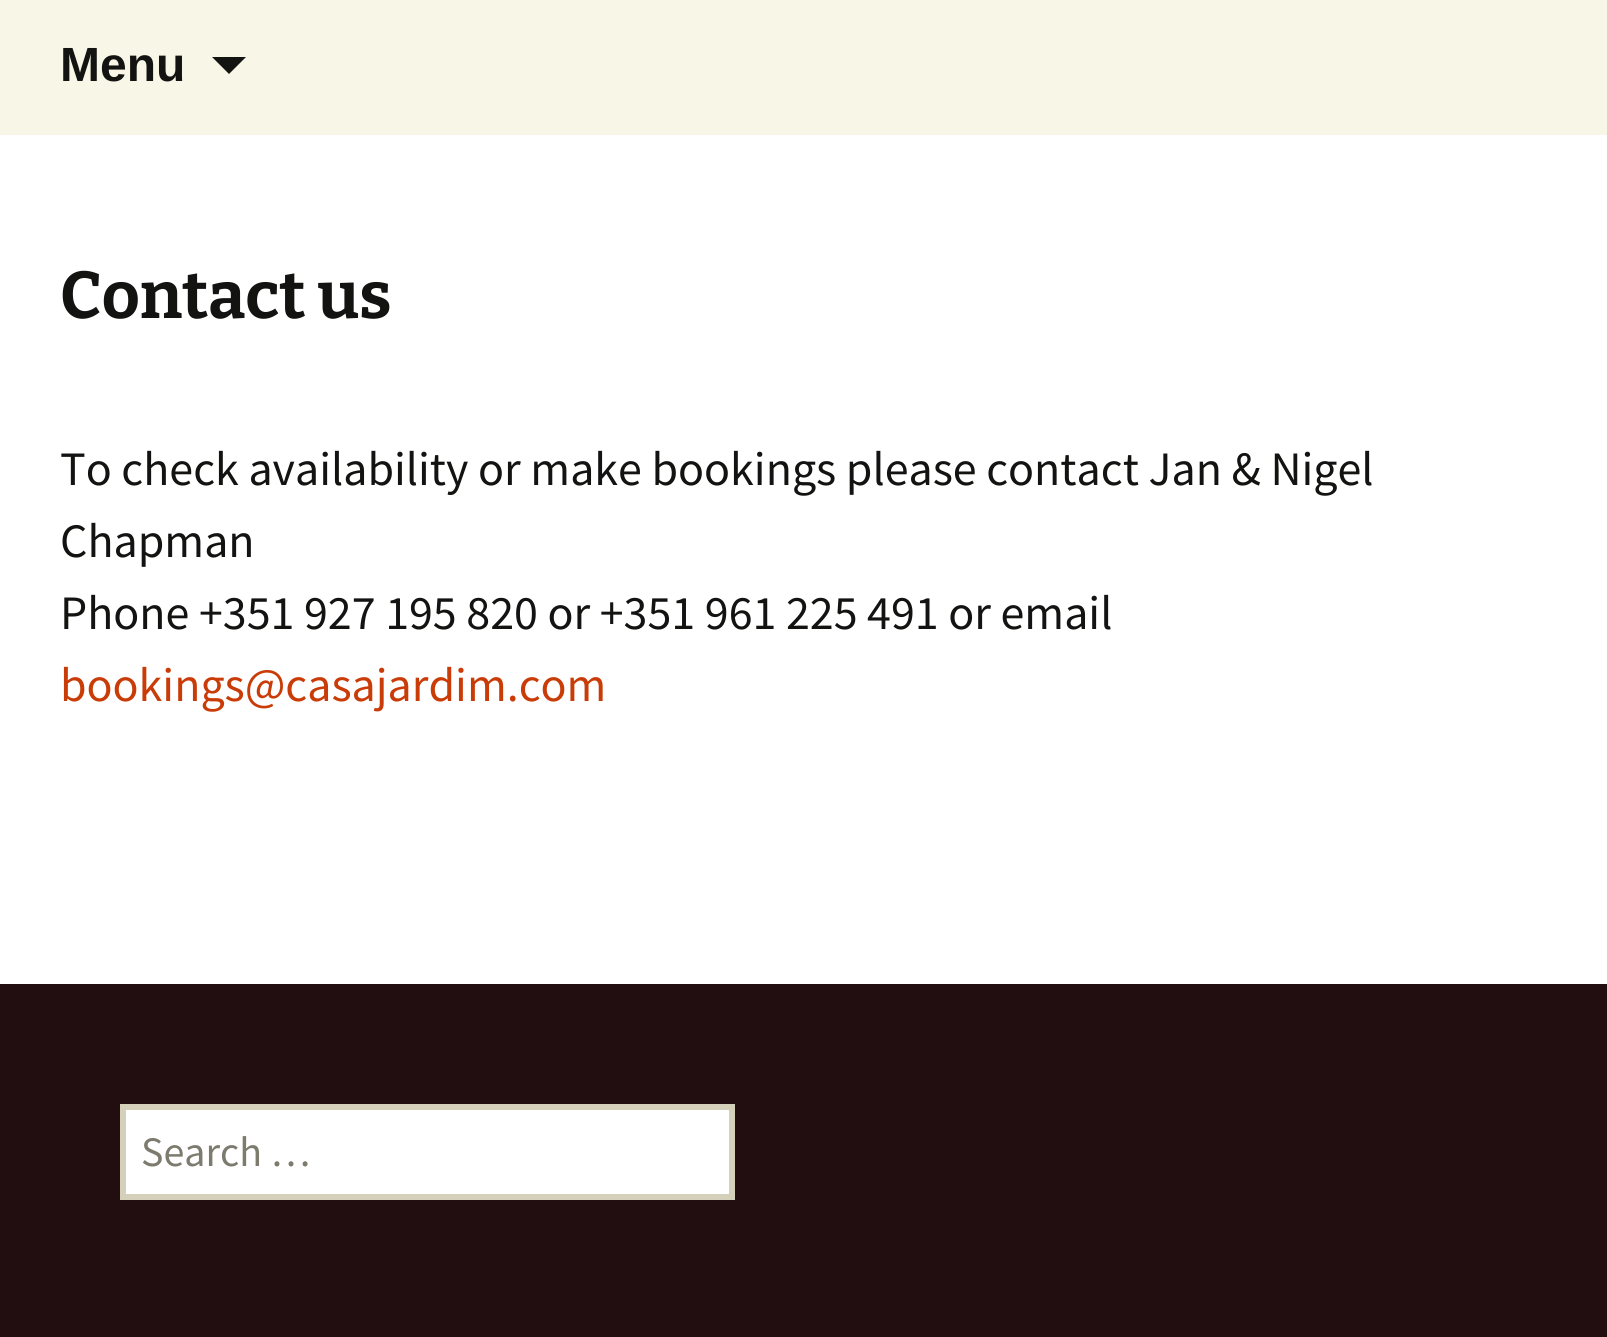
#include <cairo.h>
#include <math.h>
#include <stddef.h>


int main(void) {
    cairo_surface_t *surface = cairo_image_surface_create(CAIRO_FORMAT_RGB24, 1607, 1337);
    cairo_t *cr = cairo_create(surface);
    cairo_font_options_t *options = cairo_font_options_create();
    cairo_font_options_set_hint_metrics(options, CAIRO_HINT_METRICS_OFF);
    cairo_font_options_set_hint_style(options, CAIRO_HINT_STYLE_NONE);
    cairo_set_font_options(cr, options);
    cairo_set_miter_limit(cr, 4);
    cairo_set_source_rgb(cr, 1, 1, 1);
    cairo_paint(cr);
    cairo_set_source_rgb(cr, 0.969, 0.961, 0.906);
    cairo_rectangle(cr, 0, 0, 1607, 135);
    cairo_fill(cr);
    cairo_select_font_face(cr, "Liberation Sans", CAIRO_FONT_SLANT_NORMAL, CAIRO_FONT_WEIGHT_BOLD);
    cairo_set_font_size(cr, 48);
    cairo_set_source_rgb(cr, 0.078, 0.078, 0.071);
    cairo_move_to(cr, 60, 81);
    cairo_show_text(cr, "Menu");
    cairo_new_path(cr);
    cairo_move_to(cr, 212, 57);
    cairo_line_to(cr, 229, 74);
    cairo_line_to(cr, 246, 57);
    cairo_close_path(cr);
    cairo_fill(cr);
    cairo_select_font_face(cr, "Bitter", CAIRO_FONT_SLANT_NORMAL, CAIRO_FONT_WEIGHT_BOLD);
    cairo_set_font_size(cr, 66);
    cairo_move_to(cr, 60, 318);
    cairo_show_text(cr, "Contact us");
    cairo_select_font_face(cr, "Source Sans Pro", CAIRO_FONT_SLANT_NORMAL, CAIRO_FONT_WEIGHT_NORMAL);
    cairo_set_font_size(cr, 48);
    cairo_move_to(cr, 60, 485);
    cairo_show_text(cr, "To check availability or make bookings please contact Jan & Nigel");
    cairo_move_to(cr, 60, 557);
    cairo_show_text(cr, "Chapman");
    cairo_move_to(cr, 60, 629);
    cairo_show_text(cr, "Phone +351 927 195 820 or +351 961 225 491 or email");
    cairo_set_source_rgb(cr, 0.792, 0.235, 0.031);
    cairo_move_to(cr, 60, 701);
    cairo_show_text(cr, "bookings@casajardim.com");
    cairo_set_source_rgb(cr, 0.133, 0.055, 0.063);
    cairo_rectangle(cr, 0, 984, 1607, 353);
    cairo_fill(cr);
    cairo_set_source_rgb(cr, 1, 1, 1);
    cairo_rectangle(cr, 123, 1107, 609, 90);
    cairo_fill_preserve(cr);
    cairo_set_source_rgb(cr, 0.831, 0.816, 0.729);
    cairo_set_line_width(cr, 6);
    cairo_stroke(cr);
    cairo_set_font_size(cr, 42);
    cairo_set_source_rgb(cr, 0.49, 0.482, 0.427);
    cairo_move_to(cr, 141, 1166);
    cairo_show_text(cr, "Search …");
    cairo_surface_write_to_png(surface, "page.png");
    cairo_font_options_destroy(options);
    cairo_destroy(cr);
    cairo_surface_destroy(surface);
    return 0;
}
